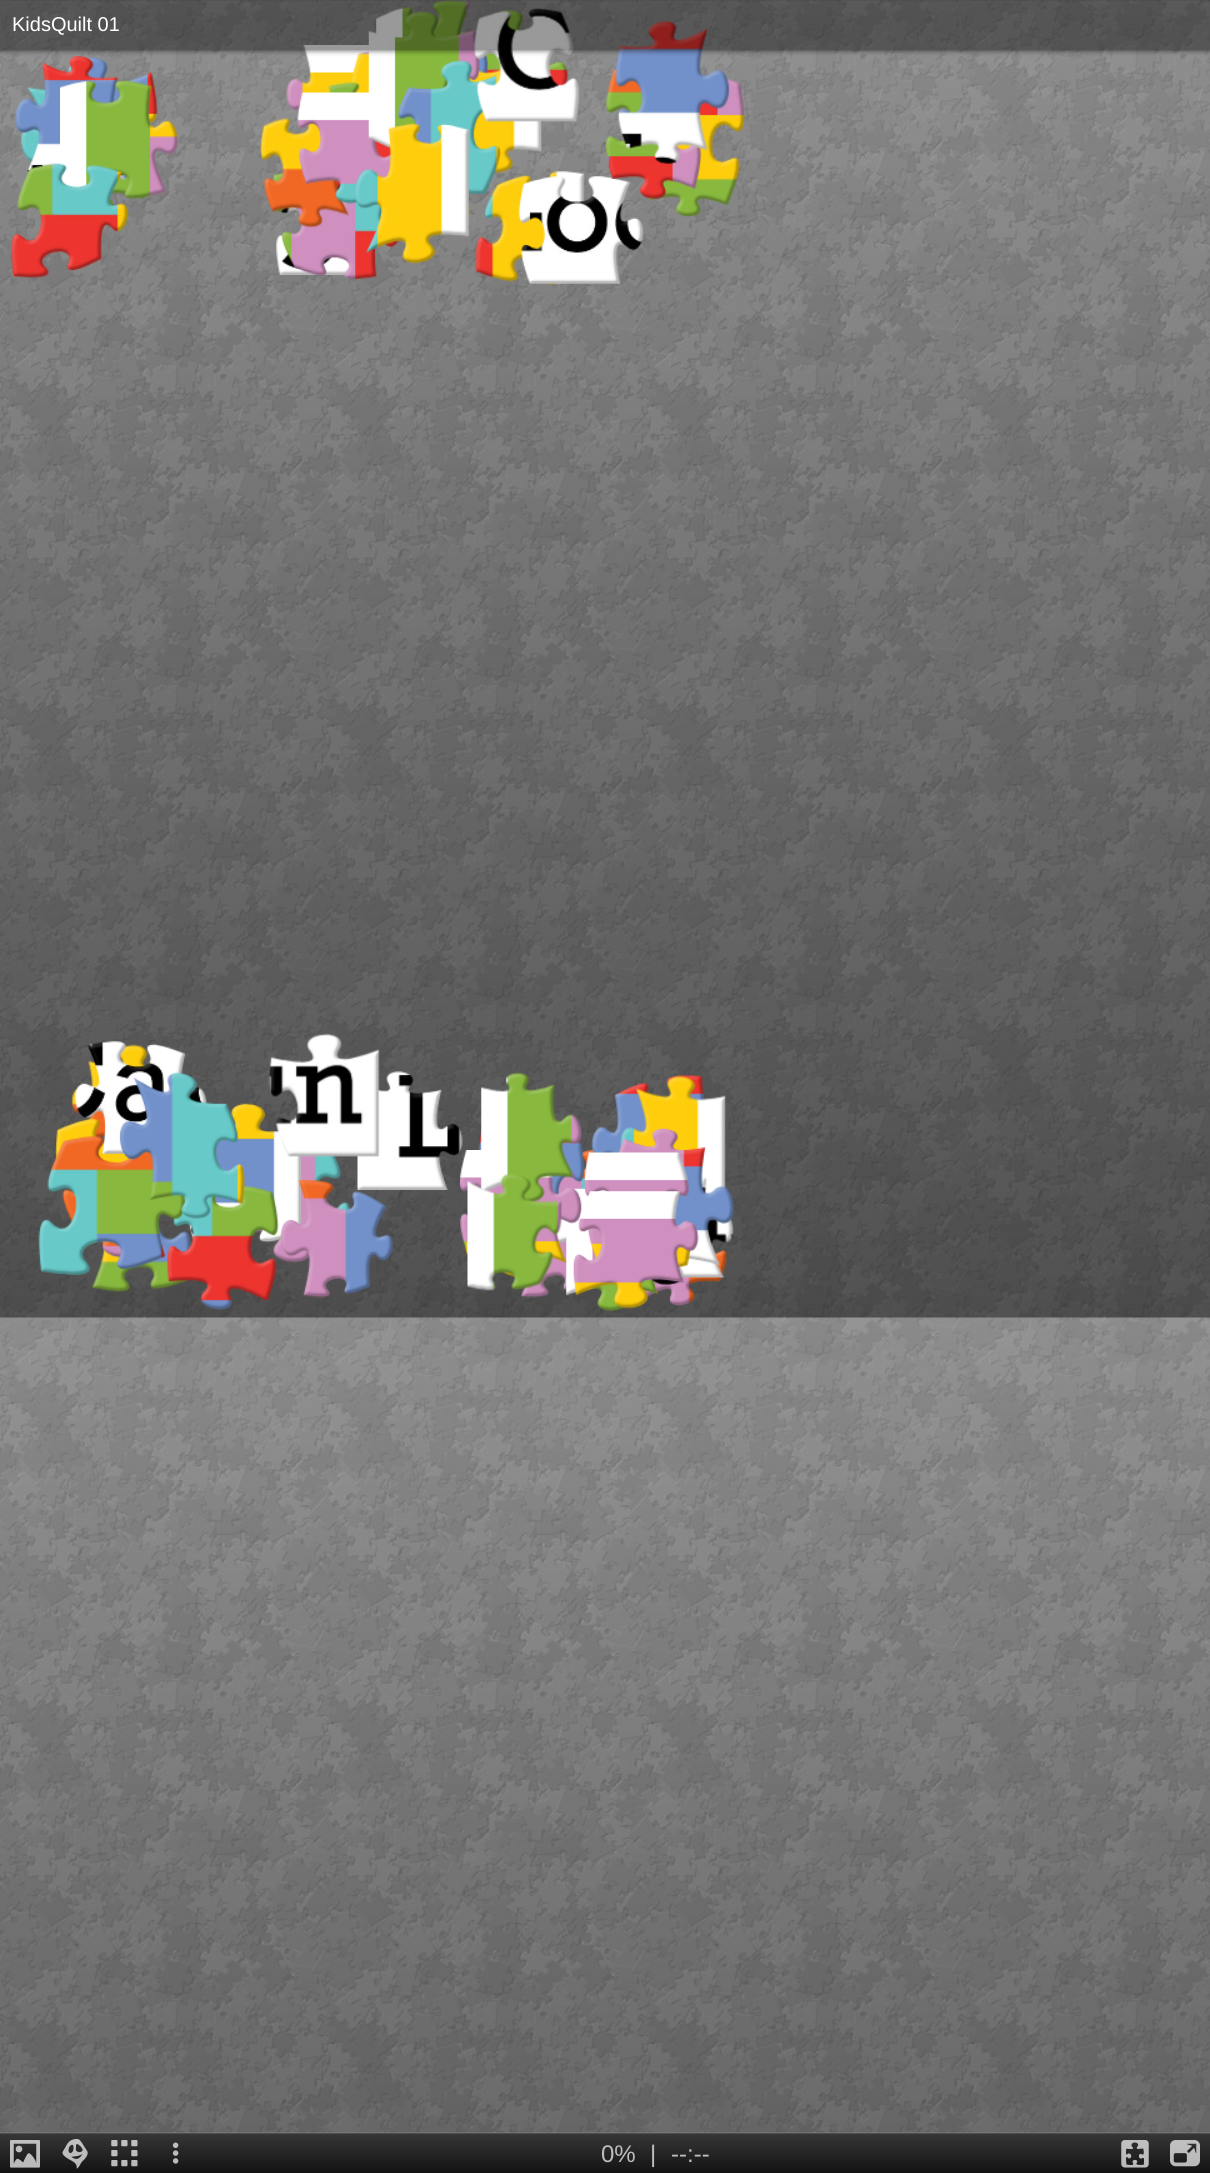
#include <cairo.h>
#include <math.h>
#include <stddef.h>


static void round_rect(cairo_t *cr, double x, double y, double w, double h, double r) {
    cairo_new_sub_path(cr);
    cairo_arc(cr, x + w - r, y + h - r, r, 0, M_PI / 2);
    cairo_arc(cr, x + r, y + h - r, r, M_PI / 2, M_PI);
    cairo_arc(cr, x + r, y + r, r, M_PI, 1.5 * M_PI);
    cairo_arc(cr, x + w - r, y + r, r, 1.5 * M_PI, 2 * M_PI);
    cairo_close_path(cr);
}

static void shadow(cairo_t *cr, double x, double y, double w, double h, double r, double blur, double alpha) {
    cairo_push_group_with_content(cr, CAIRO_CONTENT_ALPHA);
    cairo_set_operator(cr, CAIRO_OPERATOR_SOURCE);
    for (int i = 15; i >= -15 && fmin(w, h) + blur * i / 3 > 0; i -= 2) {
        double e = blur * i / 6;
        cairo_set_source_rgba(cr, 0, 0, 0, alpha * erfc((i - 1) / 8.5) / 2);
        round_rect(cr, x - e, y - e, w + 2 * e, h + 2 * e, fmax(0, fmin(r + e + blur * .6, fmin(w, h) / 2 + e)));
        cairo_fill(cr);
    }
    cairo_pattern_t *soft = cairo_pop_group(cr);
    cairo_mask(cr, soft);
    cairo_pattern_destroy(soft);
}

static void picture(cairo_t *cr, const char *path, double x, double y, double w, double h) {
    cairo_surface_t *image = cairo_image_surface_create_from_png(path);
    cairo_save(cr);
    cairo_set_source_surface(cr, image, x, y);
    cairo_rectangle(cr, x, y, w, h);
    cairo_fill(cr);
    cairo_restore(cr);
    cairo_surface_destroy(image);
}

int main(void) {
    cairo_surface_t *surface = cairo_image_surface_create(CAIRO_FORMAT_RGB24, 1210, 2173);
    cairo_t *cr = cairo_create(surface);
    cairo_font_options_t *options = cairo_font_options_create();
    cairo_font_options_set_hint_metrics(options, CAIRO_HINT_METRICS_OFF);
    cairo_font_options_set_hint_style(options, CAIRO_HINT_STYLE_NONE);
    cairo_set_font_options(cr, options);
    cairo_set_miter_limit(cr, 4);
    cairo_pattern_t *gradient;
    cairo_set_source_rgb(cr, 1, 1, 1);
    cairo_paint(cr);
    cairo_set_source_rgb(cr, 0.502, 0.502, 0.502);
    cairo_rectangle(cr, 0, 2132, 1210, 1);
    cairo_fill(cr);
    picture(cr, "img1.png", 0, 0, 1210, 2133);
    picture(cr, "img6.png", 459, 10, 110, 76);
    picture(cr, "img2.png", 376, 0, 113, 88);
    picture(cr, "img4.png", 286, 45, 83, 87);
    picture(cr, "img9.png", 349, 51, 20, 42);
    picture(cr, "img22.png", 433, 170, 63, 65);
    picture(cr, "img23.png", 474, 171, 111, 114);
    picture(cr, "img10.png", 447, 56, 95, 117);
    picture(cr, "img24.png", 276, 185, 107, 90);
    picture(cr, "img15.png", 307, 81, 85, 109);
    picture(cr, "img21.png", 272, 172, 127, 107);
    picture(cr, "img19.png", 260, 118, 89, 110);
    picture(cr, "img17.png", 297, 92, 95, 112);
    picture(cr, "img5.png", 368, 11, 112, 138);
    picture(cr, "img12.png", 391, 60, 111, 134);
    picture(cr, "img3.png", 473, 8, 107, 114);
    picture(cr, "img16.png", 649, 74, 96, 143);
    picture(cr, "img25.png", 518, 176, 126, 108);
    picture(cr, "img13.png", 605, 68, 97, 131);
    picture(cr, "img7.png", 614, 20, 116, 144);
    picture(cr, "img11.png", 21, 57, 137, 150);
    picture(cr, "img8.png", 15, 56, 111, 125);
    picture(cr, "img14.png", 60, 80, 118, 119);
    picture(cr, "img18.png", 11, 163, 118, 115);
    picture(cr, "img20.png", 355, 123, 114, 141);
    picture(cr, "img40.png", 253, 1155, 98, 108);
    picture(cr, "img34.png", 188, 1103, 114, 140);
    picture(cr, "img28.png", 71, 1044, 122, 94);
    picture(cr, "img48.png", 87, 1215, 105, 77);
    picture(cr, "img33.png", 55, 1118, 129, 140);
    picture(cr, "img26.png", 75, 1041, 133, 113);
    picture(cr, "img44.png", 280, 1180, 114, 118);
    picture(cr, "img29.png", 357, 1071, 106, 119);
    picture(cr, "img27.png", 268, 1033, 112, 124);
    picture(cr, "img43.png", 167, 1186, 112, 124);
    picture(cr, "img37.png", 38, 1136, 147, 139);
    picture(cr, "img30.png", 119, 1072, 126, 147);
    picture(cr, "img38.png", 521, 1149, 75, 149);
    picture(cr, "img35.png", 478, 1124, 107, 120);
    picture(cr, "img32.png", 591, 1075, 113, 78);
    picture(cr, "img36.png", 620, 1075, 106, 119);
    picture(cr, "img50.png", 642, 1218, 86, 88);
    picture(cr, "img46.png", 566, 1188, 92, 124);
    picture(cr, "img41.png", 460, 1150, 122, 127);
    picture(cr, "img31.png", 481, 1072, 101, 131);
    picture(cr, "img47.png", 678, 1176, 56, 102);
    picture(cr, "img39.png", 617, 1128, 117, 157);
    picture(cr, "img42.png", 583, 1152, 109, 117);
    picture(cr, "img45.png", 467, 1173, 95, 118);
    picture(cr, "img49.png", 572, 1191, 127, 118);
    cairo_save(cr);
    cairo_set_fill_rule(cr, CAIRO_FILL_RULE_EVEN_ODD);
    cairo_new_path(cr);
    cairo_move_to(cr, 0, 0);
    cairo_line_to(cr, 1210, 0);
    cairo_line_to(cr, 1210, 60);
    cairo_line_to(cr, 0, 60);
    cairo_close_path(cr);
    cairo_move_to(cr, 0, 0);
    cairo_line_to(cr, 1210, 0);
    cairo_line_to(cr, 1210, 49);
    cairo_line_to(cr, 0, 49);
    cairo_close_path(cr);
    cairo_clip(cr);
    cairo_set_source_rgb(cr, 0, 0, 0);
    shadow(cr, 0, 1, 1210, 49, 0, 3, 0.7);
    cairo_restore(cr);
    cairo_set_source_rgba(cr, 0, 0, 0, 0.4);
    cairo_rectangle(cr, 0, 0, 1210, 49);
    cairo_fill(cr);
    cairo_select_font_face(cr, "Liberation Sans", CAIRO_FONT_SLANT_NORMAL, CAIRO_FONT_WEIGHT_NORMAL);
    cairo_set_font_size(cr, 20);
    cairo_set_source_rgb(cr, 1, 1, 1);
    cairo_move_to(cr, 12, 31);
    cairo_show_text(cr, "KidsQuilt 01");
    gradient = cairo_pattern_create_linear(605, 2134, 605, 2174);
    cairo_pattern_add_color_stop_rgba(gradient, 0, 0.212, 0.212, 0.212, 1);
    cairo_pattern_add_color_stop_rgba(gradient, 1, 0.071, 0.071, 0.071, 1);
    cairo_set_source(cr, gradient);
    cairo_pattern_destroy(gradient);
    cairo_rectangle(cr, 0, 2134, 1210, 39);
    cairo_fill(cr);
    cairo_set_source_rgb(cr, 0.31, 0.31, 0.31);
    cairo_rectangle(cr, 0, 2133, 1210, 1);
    cairo_fill(cr);
    picture(cr, "img51.png", 10, 2140, 30, 28);
    picture(cr, "img52.png", 62, 2139, 26, 30);
    picture(cr, "img53.png", 111, 2140, 27, 27);
    picture(cr, "img54.png", 172, 2142, 7, 22);
    cairo_set_font_size(cr, 24);
    cairo_set_source_rgb(cr, 0.741, 0.741, 0.741);
    cairo_move_to(cr, 601, 2162);
    cairo_show_text(cr, "0%");
    cairo_move_to(cr, 650, 2162);
    cairo_show_text(cr, "|");
    cairo_move_to(cr, 671, 2162);
    cairo_show_text(cr, "--:--");
    picture(cr, "img55.png", 1121, 2140, 28, 28);
    picture(cr, "img56.png", 1170, 2140, 30, 27);
    cairo_surface_write_to_png(surface, "page.png");
    cairo_font_options_destroy(options);
    cairo_destroy(cr);
    cairo_surface_destroy(surface);
    return 0;
}
